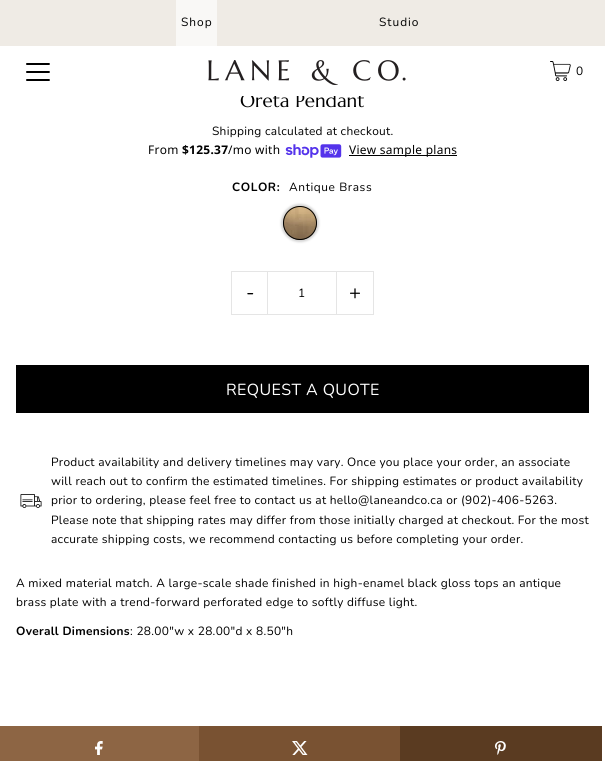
#include <cairo.h>
#include <math.h>
#include <stddef.h>


static void spaced_text(cairo_t *cr, double x, double y, const char *s, double letter, double word) {
    cairo_move_to(cr, x, y);
    while (*s) {
        char ch[5] = {0};
        int n = 0;
        do ch[n++] = *s++; while ((*s & 0xC0) == 0x80);
        cairo_show_text(cr, ch);
        cairo_rel_move_to(cr, letter + word * (*ch == ' '), 0);
    }
}

static void round_rect(cairo_t *cr, double x, double y, double w, double h, double r) {
    cairo_new_sub_path(cr);
    cairo_arc(cr, x + w - r, y + h - r, r, 0, M_PI / 2);
    cairo_arc(cr, x + r, y + h - r, r, M_PI / 2, M_PI);
    cairo_arc(cr, x + r, y + r, r, M_PI, 1.5 * M_PI);
    cairo_arc(cr, x + w - r, y + r, r, 1.5 * M_PI, 2 * M_PI);
    cairo_close_path(cr);
}

static void shadow(cairo_t *cr, double x, double y, double w, double h, double r, double blur, double alpha) {
    cairo_push_group_with_content(cr, CAIRO_CONTENT_ALPHA);
    cairo_set_operator(cr, CAIRO_OPERATOR_SOURCE);
    for (int i = 15; i >= -15 && fmin(w, h) + blur * i / 3 > 0; i -= 2) {
        double e = blur * i / 6;
        cairo_set_source_rgba(cr, 0, 0, 0, alpha * erfc((i - 1) / 8.5) / 2);
        round_rect(cr, x - e, y - e, w + 2 * e, h + 2 * e, fmax(0, fmin(r + e + blur * .6, fmin(w, h) / 2 + e)));
        cairo_fill(cr);
    }
    cairo_pattern_t *soft = cairo_pop_group(cr);
    cairo_mask(cr, soft);
    cairo_pattern_destroy(soft);
}

static void picture(cairo_t *cr, const char *path, double x, double y, double w, double h) {
    cairo_surface_t *image = cairo_image_surface_create_from_png(path);
    cairo_save(cr);
    cairo_set_source_surface(cr, image, x, y);
    cairo_rectangle(cr, x, y, w, h);
    cairo_fill(cr);
    cairo_restore(cr);
    cairo_surface_destroy(image);
}

int main(void) {
    cairo_surface_t *surface = cairo_image_surface_create(CAIRO_FORMAT_RGB24, 605, 761);
    cairo_t *cr = cairo_create(surface);
    cairo_font_options_t *options = cairo_font_options_create();
    cairo_font_options_set_hint_metrics(options, CAIRO_HINT_METRICS_OFF);
    cairo_font_options_set_hint_style(options, CAIRO_HINT_STYLE_NONE);
    cairo_set_font_options(cr, options);
    cairo_set_miter_limit(cr, 4);
    cairo_set_source_rgb(cr, 1, 1, 1);
    cairo_paint(cr);
    cairo_select_font_face(cr, "Marcellus", CAIRO_FONT_SLANT_NORMAL, CAIRO_FONT_WEIGHT_NORMAL);
    cairo_set_font_size(cr, 18.75);
    cairo_set_source_rgb(cr, 0, 0, 0);
    cairo_move_to(cr, 240, 107);
    cairo_show_text(cr, "Oreta Pendant");
    cairo_set_source_rgb(cr, 1, 1, 1);
    cairo_rectangle(cr, 242, 93, 119, 3);
    cairo_fill(cr);
    cairo_set_source_rgb(cr, 0.937, 0.918, 0.898);
    cairo_rectangle(cr, 0, 0, 605, 46);
    cairo_fill(cr);
    cairo_set_source_rgb(cr, 0.976, 0.969, 0.961);
    cairo_rectangle(cr, 176, 0, 41, 46);
    cairo_fill(cr);
    cairo_select_font_face(cr, "Nunito", CAIRO_FONT_SLANT_NORMAL, CAIRO_FONT_WEIGHT_NORMAL);
    cairo_set_font_size(cr, 11.9);
    cairo_set_source_rgb(cr, 0, 0, 0);
    spaced_text(cr, 181, 26, "Shop", 1, 0);
    spaced_text(cr, 379, 26, "Studio", 1, 0);
    picture(cr, "img1.png", 26, 63, 24, 18);
    picture(cr, "img2.png", 208, 60, 198, 25);
    picture(cr, "img3.png", 550, 61, 21, 20);
    spaced_text(cr, 576, 75, "0", 0.3, 0);
    spaced_text(cr, 212, 135, "Shipping calculated at checkout.", 0.3, 0);
    cairo_select_font_face(cr, "Noto Sans", CAIRO_FONT_SLANT_NORMAL, CAIRO_FONT_WEIGHT_NORMAL);
    spaced_text(cr, 148, 154, "From", 0.3, 0);
    cairo_select_font_face(cr, "Noto Sans", CAIRO_FONT_SLANT_NORMAL, CAIRO_FONT_WEIGHT_BOLD);
    spaced_text(cr, 182, 154, "$125.37", 0.3, 0);
    cairo_select_font_face(cr, "Noto Sans", CAIRO_FONT_SLANT_NORMAL, CAIRO_FONT_WEIGHT_NORMAL);
    spaced_text(cr, 228, 154, "/mo with", 0.3, 0);
    picture(cr, "img4.png", 285, 144, 57, 14);
    cairo_rectangle(cr, 349, 155, 108, 1);
    cairo_fill(cr);
    spaced_text(cr, 349, 154, "View sample plans", 0.3, 0);
    cairo_select_font_face(cr, "Nunito", CAIRO_FONT_SLANT_NORMAL, CAIRO_FONT_WEIGHT_BOLD);
    spaced_text(cr, 232, 191, "COLOR:", 0.6, 0);
    cairo_select_font_face(cr, "Nunito", CAIRO_FONT_SLANT_NORMAL, CAIRO_FONT_WEIGHT_NORMAL);
    spaced_text(cr, 289, 191, "Antique Brass", 0.6, 0);
    cairo_set_source_rgb(cr, 0.839, 0.839, 0.839);
    shadow(cr, 281, 204, 38, 38, 19, 1, 1);
    picture(cr, "img5.png", 283, 206, 34, 34);
    cairo_arc(cr, 300, 223, 16.5, 0, 2 * M_PI);
    cairo_set_source_rgb(cr, 0, 0, 0);
    cairo_set_line_width(cr, 1);
    cairo_stroke(cr);
    cairo_set_source_rgb(cr, 0.898, 0.898, 0.898);
    cairo_rectangle(cr, 231, 271, 38, 1);
    cairo_fill(cr);
    cairo_rectangle(cr, 231, 314, 38, 1);
    cairo_fill(cr);
    cairo_rectangle(cr, 231, 271, 1, 44);
    cairo_fill(cr);
    cairo_set_font_size(cr, 20);
    cairo_set_source_rgb(cr, 0, 0, 0);
    cairo_move_to(cr, 246, 299);
    cairo_show_text(cr, "-");
    cairo_rectangle(cr, 267.5, 271.5, 69, 43);
    cairo_set_source_rgb(cr, 0.898, 0.898, 0.898);
    cairo_stroke(cr);
    cairo_set_font_size(cr, 11.9);
    cairo_set_source_rgb(cr, 0, 0, 0);
    spaced_text(cr, 298, 297, "1", 0.3, 0);
    cairo_set_source_rgb(cr, 0.898, 0.898, 0.898);
    cairo_rectangle(cr, 336, 271, 38, 1);
    cairo_fill(cr);
    cairo_rectangle(cr, 373, 271, 1, 44);
    cairo_fill(cr);
    cairo_rectangle(cr, 336, 314, 38, 1);
    cairo_fill(cr);
    cairo_set_font_size(cr, 20);
    cairo_set_source_rgb(cr, 0, 0, 0);
    cairo_move_to(cr, 349, 299);
    cairo_show_text(cr, "+");
    cairo_rectangle(cr, 16, 365, 573, 48);
    cairo_fill(cr);
    cairo_set_font_size(cr, 16);
    cairo_set_source_rgb(cr, 1, 1, 1);
    spaced_text(cr, 226, 395, "REQUEST A QUOTE", 0.4, 0);
    picture(cr, "img6.png", 20, 494, 22, 14);
    cairo_set_font_size(cr, 11.9);
    cairo_set_source_rgb(cr, 0, 0, 0);
    spaced_text(cr, 51, 466, "Product availability and delivery timelines may vary. Once you place your order, an associate", 0.3, 0);
    spaced_text(cr, 51, 485, "will reach out to confirm the estimated timelines. For shipping estimates or product availability", 0.3, 0);
    spaced_text(cr, 51, 504, "prior to ordering, please feel free to contact us at hello@laneandco.ca or (902)-406-5263.", 0.3, 0);
    spaced_text(cr, 51, 524, "Please note that shipping rates may differ from those initially charged at checkout. For the most", 0.3, 0);
    spaced_text(cr, 51, 543, "accurate shipping costs, we recommend contacting us before completing your order.", 0.3, 0);
    spaced_text(cr, 16, 587, "A mixed material match. A large-scale shade finished in high-enamel black gloss tops an antique", 0.3, 0);
    spaced_text(cr, 16, 606, "brass plate with a trend-forward perforated edge to softly diffuse light.", 0.3, 0);
    cairo_select_font_face(cr, "Nunito", CAIRO_FONT_SLANT_NORMAL, CAIRO_FONT_WEIGHT_BOLD);
    spaced_text(cr, 16, 635, "Overall Dimensions", 0.3, 0);
    cairo_select_font_face(cr, "Nunito", CAIRO_FONT_SLANT_NORMAL, CAIRO_FONT_WEIGHT_NORMAL);
    spaced_text(cr, 130, 635, ": 28.00\"w x 28.00\"d x 8.50\"h", 0.3, 0);
    cairo_set_source_rgb(cr, 0.553, 0.396, 0.267);
    cairo_rectangle(cr, 0, 726, 199, 35);
    cairo_fill(cr);
    picture(cr, "img7.png", 95, 741, 8, 14);
    cairo_set_source_rgb(cr, 0.475, 0.322, 0.196);
    cairo_rectangle(cr, 199, 726, 201, 35);
    cairo_fill(cr);
    picture(cr, "img8.png", 292, 741, 16, 14);
    cairo_set_source_rgb(cr, 0.353, 0.231, 0.129);
    cairo_rectangle(cr, 400, 726, 202, 35);
    cairo_fill(cr);
    picture(cr, "img9.png", 495, 741, 11, 14);
    cairo_surface_write_to_png(surface, "page.png");
    cairo_font_options_destroy(options);
    cairo_destroy(cr);
    cairo_surface_destroy(surface);
    return 0;
}
